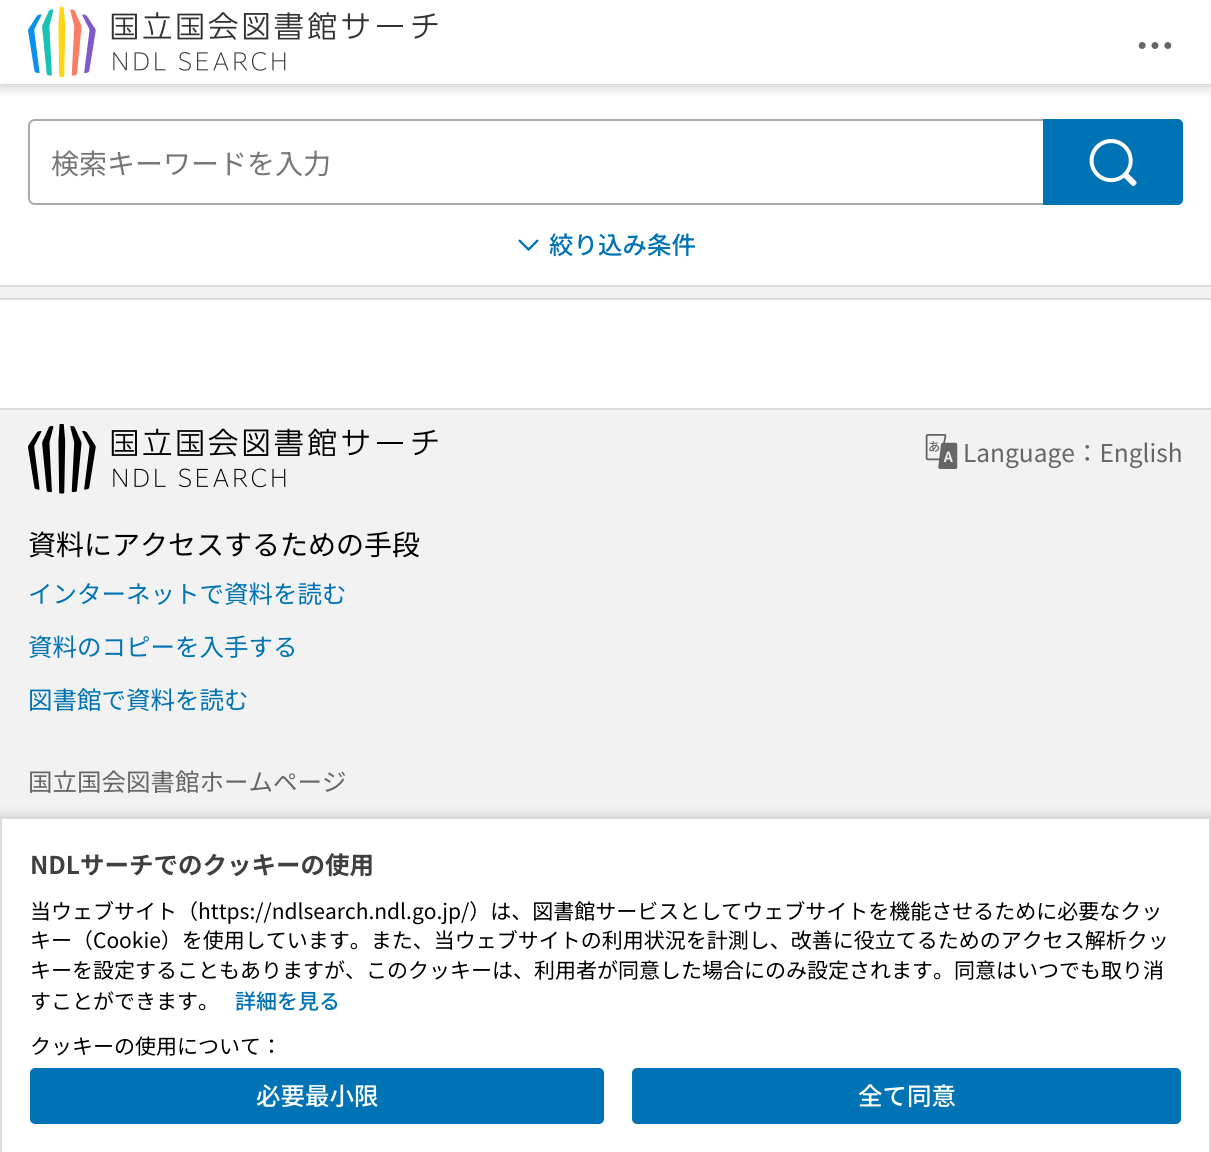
#include <cairo.h>
#include <math.h>
#include <stddef.h>


static void round_rect(cairo_t *cr, double x, double y, double w, double h, double r) {
    cairo_new_sub_path(cr);
    cairo_arc(cr, x + w - r, y + h - r, r, 0, M_PI / 2);
    cairo_arc(cr, x + r, y + h - r, r, M_PI / 2, M_PI);
    cairo_arc(cr, x + r, y + r, r, M_PI, 1.5 * M_PI);
    cairo_arc(cr, x + w - r, y + r, r, 1.5 * M_PI, 2 * M_PI);
    cairo_close_path(cr);
}

static void shadow(cairo_t *cr, double x, double y, double w, double h, double r, double blur, double alpha) {
    cairo_push_group_with_content(cr, CAIRO_CONTENT_ALPHA);
    cairo_set_operator(cr, CAIRO_OPERATOR_SOURCE);
    for (int i = 15; i >= -15 && fmin(w, h) + blur * i / 3 > 0; i -= 2) {
        double e = blur * i / 6;
        cairo_set_source_rgba(cr, 0, 0, 0, alpha * erfc((i - 1) / 8.5) / 2);
        round_rect(cr, x - e, y - e, w + 2 * e, h + 2 * e, fmax(0, fmin(r + e + blur * .6, fmin(w, h) / 2 + e)));
        cairo_fill(cr);
    }
    cairo_pattern_t *soft = cairo_pop_group(cr);
    cairo_mask(cr, soft);
    cairo_pattern_destroy(soft);
}

static void picture(cairo_t *cr, const char *path, double x, double y, double w, double h) {
    cairo_surface_t *image = cairo_image_surface_create_from_png(path);
    cairo_save(cr);
    cairo_set_source_surface(cr, image, x, y);
    cairo_rectangle(cr, x, y, w, h);
    cairo_fill(cr);
    cairo_restore(cr);
    cairo_surface_destroy(image);
}

int main(void) {
    cairo_surface_t *surface = cairo_image_surface_create(CAIRO_FORMAT_RGB24, 1211, 1152);
    cairo_t *cr = cairo_create(surface);
    cairo_font_options_t *options = cairo_font_options_create();
    cairo_font_options_set_hint_metrics(options, CAIRO_HINT_METRICS_OFF);
    cairo_font_options_set_hint_style(options, CAIRO_HINT_STYLE_NONE);
    cairo_set_font_options(cr, options);
    cairo_set_miter_limit(cr, 4);
    cairo_set_source_rgb(cr, 1, 1, 1);
    cairo_paint(cr);
    cairo_save(cr);
    cairo_rectangle(cr, 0, 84, 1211, 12);
    cairo_clip(cr);
    cairo_set_source_rgb(cr, 0, 0, 0);
    shadow(cr, 0, 2, 1211, 84, 0, 7, 0.24);
    cairo_restore(cr);
    picture(cr, "img1.png", 28, 7, 410, 70);
    picture(cr, "img2.png", 1138, 42, 34, 7);
    cairo_set_source_rgb(cr, 0.667, 0.667, 0.667);
    cairo_set_fill_rule(cr, CAIRO_FILL_RULE_EVEN_ODD);
    cairo_new_path(cr);
    cairo_move_to(cr, 35, 119);
    cairo_line_to(cr, 1043, 119);
    cairo_line_to(cr, 1043, 205);
    cairo_line_to(cr, 35, 205);
    cairo_curve_to(cr, 31, 205, 28, 202, 28, 198);
    cairo_line_to(cr, 28, 126);
    cairo_curve_to(cr, 28, 122, 31, 119, 35, 119);
    cairo_close_path(cr);
    cairo_move_to(cr, 35, 121);
    cairo_line_to(cr, 1043, 121);
    cairo_line_to(cr, 1043, 203);
    cairo_line_to(cr, 35, 203);
    cairo_curve_to(cr, 32, 203, 30, 201, 30, 198);
    cairo_line_to(cr, 30, 126);
    cairo_curve_to(cr, 30, 123, 32, 121, 35, 121);
    cairo_close_path(cr);
    cairo_fill(cr);
    cairo_select_font_face(cr, "Noto Sans JP", CAIRO_FONT_SLANT_NORMAL, CAIRO_FONT_WEIGHT_NORMAL);
    cairo_set_font_size(cr, 28);
    cairo_set_source_rgb(cr, 0.463, 0.463, 0.463);
    cairo_move_to(cr, 51, 174);
    cairo_show_text(cr, "検索キーワードを入力");
    cairo_set_source_rgb(cr, 0, 0.451, 0.71);
    cairo_new_path(cr);
    cairo_move_to(cr, 1044, 120);
    cairo_line_to(cr, 1178, 120);
    cairo_curve_to(cr, 1180, 120, 1182, 122, 1182, 124);
    cairo_line_to(cr, 1182, 200);
    cairo_curve_to(cr, 1182, 202, 1180, 204, 1178, 204);
    cairo_line_to(cr, 1044, 204);
    cairo_close_path(cr);
    cairo_fill_preserve(cr);
    cairo_stroke(cr);
    picture(cr, "img3.png", 1089, 139, 48, 47);
    picture(cr, "img4.png", 518, 239, 21, 12);
    cairo_select_font_face(cr, "Noto Sans JP Medium", CAIRO_FONT_SLANT_NORMAL, CAIRO_FONT_WEIGHT_NORMAL);
    cairo_set_font_size(cr, 24.5);
    cairo_move_to(cr, 549, 254);
    cairo_show_text(cr, "絞り込み条件");
    cairo_set_source_rgb(cr, 0.949, 0.949, 0.949);
    cairo_rectangle(cr, 0, 287, 1211, 11);
    cairo_fill(cr);
    cairo_set_source_rgb(cr, 0.859, 0.859, 0.859);
    cairo_rectangle(cr, 0, 285, 1211, 2);
    cairo_fill(cr);
    cairo_rectangle(cr, 0, 298, 1211, 2);
    cairo_fill(cr);
    cairo_set_source_rgb(cr, 0.949, 0.949, 0.949);
    cairo_rectangle(cr, 0, 410, 1211, 407);
    cairo_fill(cr);
    cairo_set_source_rgb(cr, 0.859, 0.859, 0.859);
    cairo_rectangle(cr, 0, 408, 1211, 2);
    cairo_fill(cr);
    picture(cr, "img5.png", 28, 424, 410, 70);
    picture(cr, "img6.png", 925, 434, 33, 35);
    cairo_select_font_face(cr, "Noto Sans JP", CAIRO_FONT_SLANT_NORMAL, CAIRO_FONT_WEIGHT_NORMAL);
    cairo_set_source_rgb(cr, 0.4, 0.4, 0.4);
    cairo_move_to(cr, 963, 462);
    cairo_show_text(cr, "Language：English");
    cairo_set_font_size(cr, 28);
    cairo_set_source_rgb(cr, 0, 0, 0);
    cairo_move_to(cr, 28, 555);
    cairo_show_text(cr, "資料にアクセスするための手段");
    cairo_set_font_size(cr, 24.5);
    cairo_set_source_rgb(cr, 0, 0.451, 0.71);
    cairo_move_to(cr, 28, 603);
    cairo_show_text(cr, "インターネットで資料を読む");
    cairo_move_to(cr, 28, 656);
    cairo_show_text(cr, "資料のコピーを入手する");
    cairo_move_to(cr, 28, 709);
    cairo_show_text(cr, "図書館で資料を読む");
    cairo_set_source_rgb(cr, 0.4, 0.4, 0.4);
    cairo_move_to(cr, 28, 791);
    cairo_show_text(cr, "国立国会図書館ホームページ");
    cairo_set_source_rgb(cr, 0, 0, 0);
    shadow(cr, 0, 819, 1211, 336, 0, 7, 0.24);
    cairo_set_source_rgb(cr, 1, 1, 1);
    cairo_rectangle(cr, 2, 819, 1207, 212);
    cairo_fill(cr);
    cairo_rectangle(cr, 1, 818, 1209, 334);
    cairo_set_source_rgb(cr, 0.859, 0.859, 0.859);
    cairo_stroke(cr);
    cairo_select_font_face(cr, "Noto Sans JP", CAIRO_FONT_SLANT_NORMAL, CAIRO_FONT_WEIGHT_BOLD);
    cairo_set_source_rgb(cr, 0.251, 0.251, 0.251);
    cairo_move_to(cr, 30, 874);
    cairo_show_text(cr, "NDLサーチでのクッキーの使用");
    cairo_select_font_face(cr, "Noto Sans JP", CAIRO_FONT_SLANT_NORMAL, CAIRO_FONT_WEIGHT_NORMAL);
    cairo_set_font_size(cr, 21);
    cairo_set_source_rgb(cr, 0, 0, 0);
    cairo_move_to(cr, 30, 919);
    cairo_show_text(cr, "当ウェブサイト（https://ndlsearch.ndl.go.jp/）は、図書館サービスとしてウェブサイトを機能させるために必要なクッ");
    cairo_move_to(cr, 30, 948);
    cairo_show_text(cr, "キー（Cookie）を使用しています。また、当ウェブサイトの利用状況を計測し、改善に役立てるためのアクセス解析クッ");
    cairo_move_to(cr, 30, 978);
    cairo_show_text(cr, "キーを設定することもありますが、このクッキーは、利用者が同意した場合にのみ設定されます。同意はいつでも取り消");
    cairo_move_to(cr, 30, 1009);
    cairo_show_text(cr, "すことができます。");
    cairo_select_font_face(cr, "Noto Sans JP Medium", CAIRO_FONT_SLANT_NORMAL, CAIRO_FONT_WEIGHT_NORMAL);
    cairo_set_source_rgb(cr, 0, 0.451, 0.71);
    cairo_move_to(cr, 235, 1009);
    cairo_show_text(cr, "詳細を見る");
    cairo_set_source_rgb(cr, 1, 1, 1);
    cairo_rectangle(cr, 2, 1031, 1207, 121);
    cairo_fill(cr);
    cairo_select_font_face(cr, "Noto Sans JP", CAIRO_FONT_SLANT_NORMAL, CAIRO_FONT_WEIGHT_NORMAL);
    cairo_set_source_rgb(cr, 0, 0, 0);
    cairo_move_to(cr, 30, 1054);
    cairo_show_text(cr, "クッキーの使用について：");
    cairo_set_source_rgb(cr, 0, 0.451, 0.71);
    round_rect(cr, 31, 1069, 572, 54, 4);
    cairo_fill_preserve(cr);
    cairo_stroke(cr);
    cairo_select_font_face(cr, "Noto Sans JP Medium", CAIRO_FONT_SLANT_NORMAL, CAIRO_FONT_WEIGHT_NORMAL);
    cairo_set_font_size(cr, 24.5);
    cairo_set_source_rgb(cr, 1, 1, 1);
    cairo_move_to(cr, 256, 1105);
    cairo_show_text(cr, "必要最小限");
    cairo_set_source_rgb(cr, 0, 0.451, 0.71);
    round_rect(cr, 633, 1069, 547, 54, 4);
    cairo_fill_preserve(cr);
    cairo_stroke(cr);
    cairo_set_source_rgb(cr, 1, 1, 1);
    cairo_move_to(cr, 858, 1105);
    cairo_show_text(cr, "全て同意");
    cairo_surface_write_to_png(surface, "page.png");
    cairo_font_options_destroy(options);
    cairo_destroy(cr);
    cairo_surface_destroy(surface);
    return 0;
}
